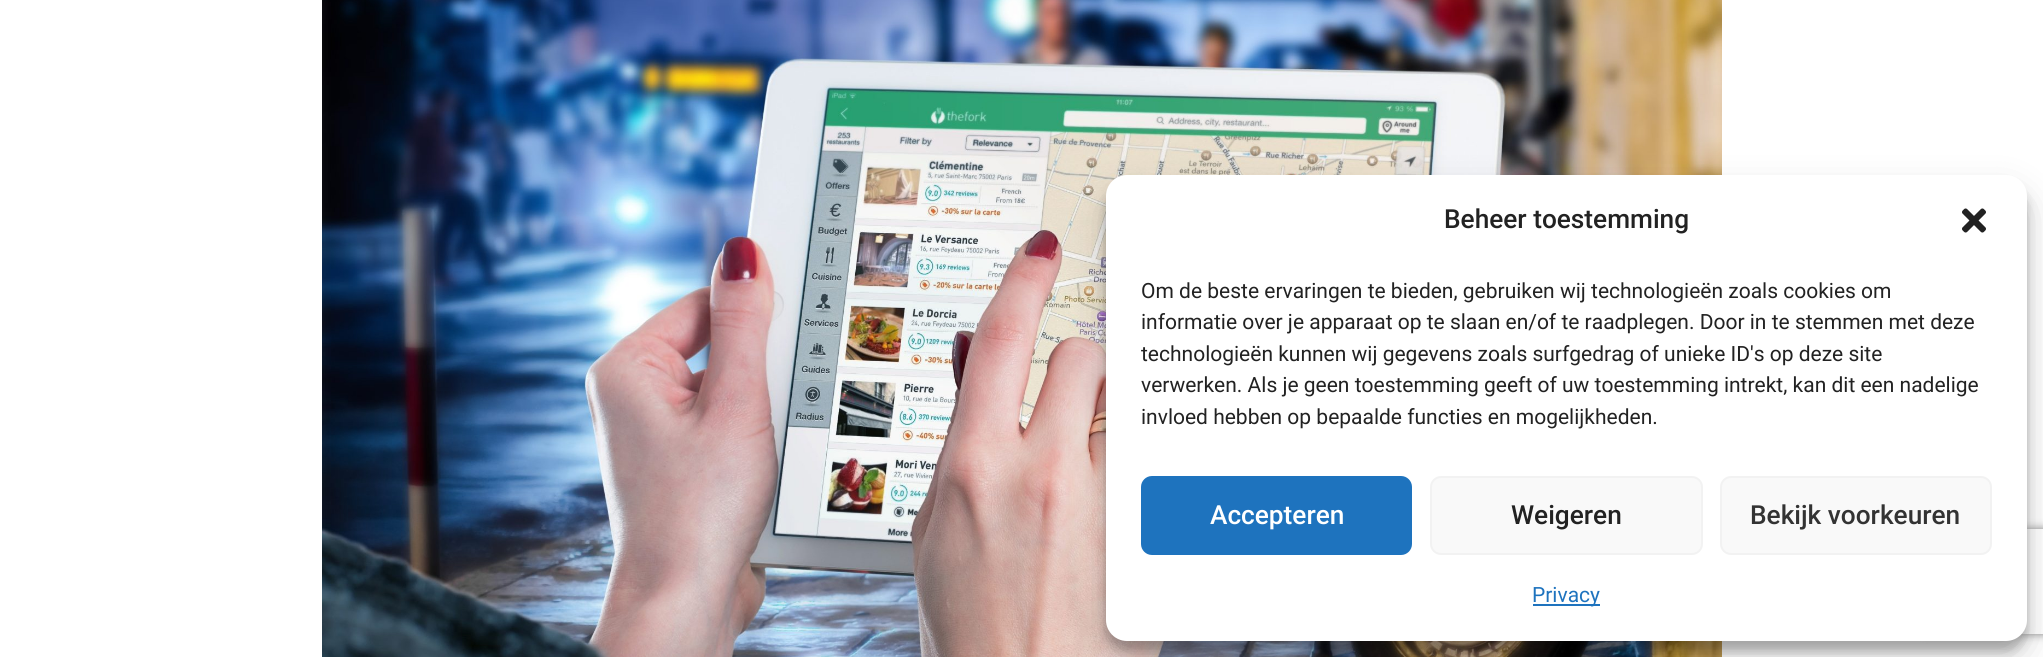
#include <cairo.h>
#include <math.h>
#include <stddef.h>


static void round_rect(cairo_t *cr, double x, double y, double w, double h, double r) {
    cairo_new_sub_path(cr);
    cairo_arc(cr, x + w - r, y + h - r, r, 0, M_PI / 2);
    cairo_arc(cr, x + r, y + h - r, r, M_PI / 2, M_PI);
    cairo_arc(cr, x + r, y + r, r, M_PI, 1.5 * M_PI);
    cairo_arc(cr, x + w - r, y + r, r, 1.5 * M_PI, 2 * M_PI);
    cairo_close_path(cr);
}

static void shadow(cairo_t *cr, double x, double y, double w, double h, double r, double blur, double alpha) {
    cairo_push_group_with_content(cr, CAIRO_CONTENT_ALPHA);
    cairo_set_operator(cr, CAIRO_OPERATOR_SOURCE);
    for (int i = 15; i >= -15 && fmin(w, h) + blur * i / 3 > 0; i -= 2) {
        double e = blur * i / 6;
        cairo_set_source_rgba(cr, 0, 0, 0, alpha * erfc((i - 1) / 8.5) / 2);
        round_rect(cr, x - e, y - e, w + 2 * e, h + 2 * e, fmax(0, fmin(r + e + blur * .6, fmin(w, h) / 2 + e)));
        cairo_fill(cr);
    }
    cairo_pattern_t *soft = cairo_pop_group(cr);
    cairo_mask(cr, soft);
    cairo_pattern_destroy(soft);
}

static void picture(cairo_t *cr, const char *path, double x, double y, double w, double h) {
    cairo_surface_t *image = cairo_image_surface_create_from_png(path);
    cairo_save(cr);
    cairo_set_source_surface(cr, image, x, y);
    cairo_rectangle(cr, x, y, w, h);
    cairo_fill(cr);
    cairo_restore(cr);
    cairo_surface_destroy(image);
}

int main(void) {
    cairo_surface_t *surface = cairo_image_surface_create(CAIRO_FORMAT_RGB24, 2043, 657);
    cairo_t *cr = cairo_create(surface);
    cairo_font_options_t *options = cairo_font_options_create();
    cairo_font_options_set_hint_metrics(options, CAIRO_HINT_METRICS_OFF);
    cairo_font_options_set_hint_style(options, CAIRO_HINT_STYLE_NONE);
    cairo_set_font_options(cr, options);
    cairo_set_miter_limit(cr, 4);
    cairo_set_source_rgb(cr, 1, 1, 1);
    cairo_paint(cr);
    picture(cr, "img1.png", 322, 0, 1400, 657);
    cairo_set_source_rgb(cr, 0, 0, 0);
    shadow(cr, 1106, 186, 921, 465, 21, 5, 0.23);
    shadow(cr, 1106, 193, 921, 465, 21, 17.5, 0.19);
    cairo_save(cr);
    cairo_set_fill_rule(cr, CAIRO_FILL_RULE_EVEN_ODD);
    cairo_new_path(cr);
    cairo_move_to(cr, 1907, 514);
    cairo_line_to(cr, 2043, 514);
    cairo_line_to(cr, 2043, 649);
    cairo_line_to(cr, 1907, 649);
    cairo_close_path(cr);
    cairo_move_to(cr, 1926, 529);
    cairo_line_to(cr, 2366, 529);
    cairo_curve_to(cr, 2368, 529, 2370, 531, 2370, 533);
    cairo_line_to(cr, 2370, 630);
    cairo_curve_to(cr, 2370, 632, 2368, 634, 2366, 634);
    cairo_line_to(cr, 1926, 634);
    cairo_curve_to(cr, 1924, 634, 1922, 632, 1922, 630);
    cairo_line_to(cr, 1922, 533);
    cairo_curve_to(cr, 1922, 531, 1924, 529, 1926, 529);
    cairo_close_path(cr);
    cairo_clip(cr);
    cairo_set_source_rgb(cr, 0.502, 0.502, 0.502);
    shadow(cr, 1922, 529, 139, 105, 4, 4.5, 1);
    cairo_restore(cr);
    cairo_set_source_rgb(cr, 1, 1, 1);
    round_rect(cr, 1106, 175, 921, 466, 21);
    cairo_fill(cr);
    cairo_select_font_face(cr, "Roboto Medium", CAIRO_FONT_SLANT_NORMAL, CAIRO_FONT_WEIGHT_NORMAL);
    cairo_set_font_size(cr, 26.25);
    cairo_set_source_rgb(cr, 0.133, 0.133, 0.133);
    cairo_move_to(cr, 1444, 228);
    cairo_show_text(cr, "Beheer toestemming");
    picture(cr, "img2.png", 1962, 208, 24, 25);
    cairo_select_font_face(cr, "Roboto", CAIRO_FONT_SLANT_NORMAL, CAIRO_FONT_WEIGHT_NORMAL);
    cairo_set_font_size(cr, 21);
    cairo_move_to(cr, 1141, 298);
    cairo_show_text(cr, "Om de beste ervaringen te bieden, gebruiken wij technologieën zoals cookies om");
    cairo_move_to(cr, 1141, 329);
    cairo_show_text(cr, "informatie over je apparaat op te slaan en/of te raadplegen. Door in te stemmen met deze");
    cairo_move_to(cr, 1141, 361);
    cairo_show_text(cr, "technologieën kunnen wij gegevens zoals surfgedrag of unieke ID's op deze site");
    cairo_move_to(cr, 1141, 392);
    cairo_show_text(cr, "verwerken. Als je geen toestemming geeft of uw toestemming intrekt, kan dit een nadelige");
    cairo_move_to(cr, 1141, 424);
    cairo_show_text(cr, "invloed hebben op bepaalde functies en mogelijkheden.");
    cairo_set_source_rgb(cr, 0.118, 0.451, 0.745);
    round_rect(cr, 1142, 477, 269, 77, 10);
    cairo_fill_preserve(cr);
    cairo_stroke(cr);
    cairo_select_font_face(cr, "Roboto Medium", CAIRO_FONT_SLANT_NORMAL, CAIRO_FONT_WEIGHT_NORMAL);
    cairo_set_font_size(cr, 26.25);
    cairo_set_source_rgb(cr, 1, 1, 1);
    cairo_move_to(cr, 1210, 524);
    cairo_show_text(cr, "Accepteren");
    cairo_set_source_rgb(cr, 0.976, 0.976, 0.976);
    round_rect(cr, 1431, 477, 271, 77, 10);
    cairo_fill_preserve(cr);
    cairo_set_source_rgb(cr, 0.949, 0.949, 0.949);
    cairo_stroke(cr);
    cairo_set_source_rgb(cr, 0.133, 0.133, 0.133);
    cairo_move_to(cr, 1511, 524);
    cairo_show_text(cr, "Weigeren");
    cairo_set_source_rgb(cr, 0.976, 0.976, 0.976);
    round_rect(cr, 1721, 477, 270, 77, 10);
    cairo_fill_preserve(cr);
    cairo_set_source_rgb(cr, 0.949, 0.949, 0.949);
    cairo_stroke(cr);
    cairo_set_source_rgb(cr, 0.2, 0.2, 0.2);
    cairo_move_to(cr, 1750, 524);
    cairo_show_text(cr, "Bekijk voorkeuren");
    cairo_set_source_rgb(cr, 0.118, 0.451, 0.745);
    cairo_rectangle(cr, 1533, 604, 67, 2);
    cairo_fill(cr);
    cairo_select_font_face(cr, "Roboto", CAIRO_FONT_SLANT_NORMAL, CAIRO_FONT_WEIGHT_NORMAL);
    cairo_set_font_size(cr, 21);
    cairo_move_to(cr, 1532, 602);
    cairo_show_text(cr, "Privacy");
    cairo_surface_write_to_png(surface, "page.png");
    cairo_font_options_destroy(options);
    cairo_destroy(cr);
    cairo_surface_destroy(surface);
    return 0;
}
